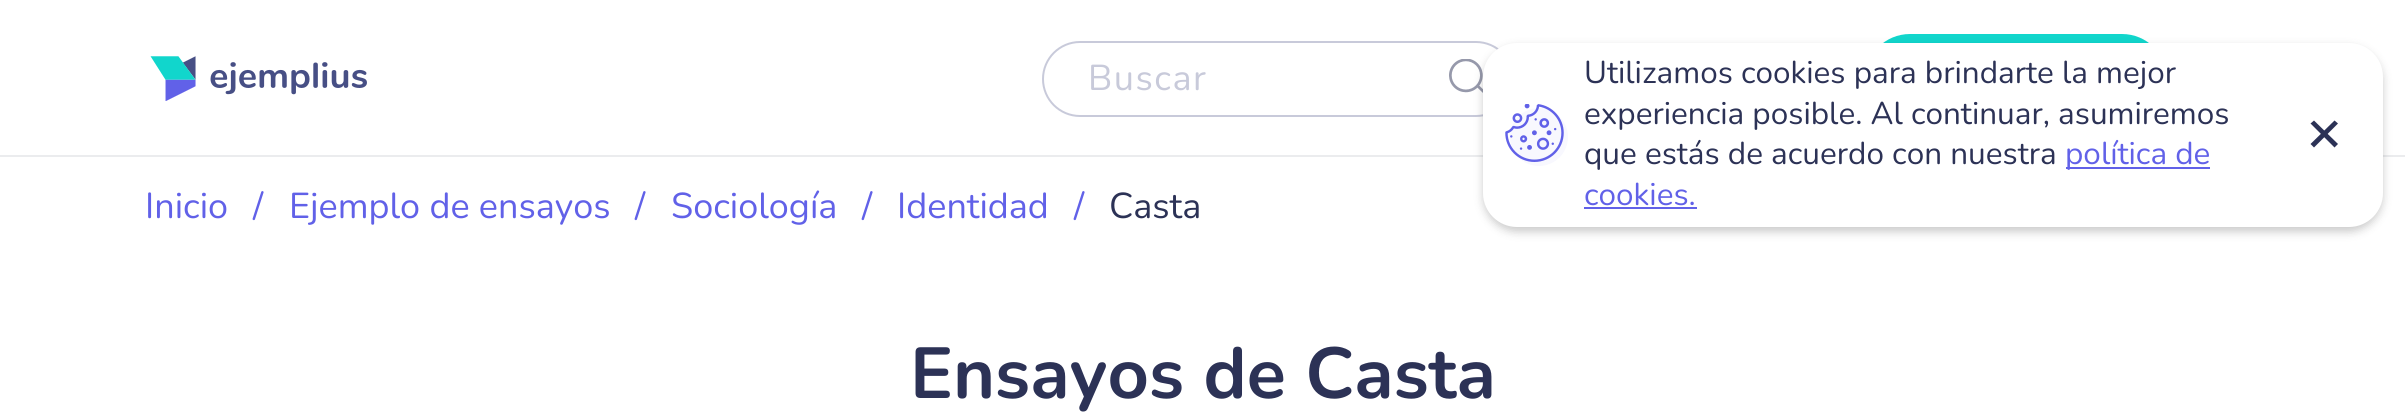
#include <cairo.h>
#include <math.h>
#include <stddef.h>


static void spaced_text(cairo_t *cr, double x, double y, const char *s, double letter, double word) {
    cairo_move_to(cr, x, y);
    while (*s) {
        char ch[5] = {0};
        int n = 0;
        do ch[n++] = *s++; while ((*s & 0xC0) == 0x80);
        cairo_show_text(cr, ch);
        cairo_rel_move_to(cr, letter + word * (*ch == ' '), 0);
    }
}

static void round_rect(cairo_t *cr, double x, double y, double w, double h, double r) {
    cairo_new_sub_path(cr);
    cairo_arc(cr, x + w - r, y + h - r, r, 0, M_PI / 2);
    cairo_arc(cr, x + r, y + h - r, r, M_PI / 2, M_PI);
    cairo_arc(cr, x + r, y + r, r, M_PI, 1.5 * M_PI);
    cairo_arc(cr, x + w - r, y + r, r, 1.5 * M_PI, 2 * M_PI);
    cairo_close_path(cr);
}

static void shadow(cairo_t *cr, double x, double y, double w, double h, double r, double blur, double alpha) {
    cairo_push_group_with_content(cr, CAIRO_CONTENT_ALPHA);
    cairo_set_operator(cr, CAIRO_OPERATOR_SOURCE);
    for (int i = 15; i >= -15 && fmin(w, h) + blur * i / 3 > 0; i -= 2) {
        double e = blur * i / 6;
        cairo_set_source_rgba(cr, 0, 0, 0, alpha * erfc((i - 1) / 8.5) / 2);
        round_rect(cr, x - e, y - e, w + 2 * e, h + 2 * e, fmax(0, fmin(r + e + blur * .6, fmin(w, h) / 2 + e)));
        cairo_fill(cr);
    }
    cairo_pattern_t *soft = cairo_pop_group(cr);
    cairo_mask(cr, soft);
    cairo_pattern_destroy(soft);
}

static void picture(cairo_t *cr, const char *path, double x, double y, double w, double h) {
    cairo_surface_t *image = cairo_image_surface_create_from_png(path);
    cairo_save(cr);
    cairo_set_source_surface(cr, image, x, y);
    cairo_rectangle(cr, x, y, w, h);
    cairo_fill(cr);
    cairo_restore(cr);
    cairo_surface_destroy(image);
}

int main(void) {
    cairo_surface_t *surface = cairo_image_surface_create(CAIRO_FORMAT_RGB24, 2405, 418);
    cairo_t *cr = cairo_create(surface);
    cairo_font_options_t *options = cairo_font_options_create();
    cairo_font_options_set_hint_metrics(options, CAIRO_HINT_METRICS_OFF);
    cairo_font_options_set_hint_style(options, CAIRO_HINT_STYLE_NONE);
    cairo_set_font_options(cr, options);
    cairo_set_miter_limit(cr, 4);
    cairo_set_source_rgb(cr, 1, 1, 1);
    cairo_paint(cr);
    cairo_set_source_rgb(cr, 0.918, 0.922, 0.933);
    cairo_rectangle(cr, 0, 155, 2405, 2);
    cairo_fill(cr);
    picture(cr, "img1.png", 150, 56, 217, 45);
    round_rect(cr, 1043, 42, 470, 74, 37);
    cairo_set_source_rgb(cr, 0.784, 0.792, 0.855);
    cairo_stroke(cr);
    cairo_select_font_face(cr, "Nunito", CAIRO_FONT_SLANT_NORMAL, CAIRO_FONT_WEIGHT_NORMAL);
    cairo_set_font_size(cr, 36);
    spaced_text(cr, 1088, 90, "Buscar", 1.5, 0);
    picture(cr, "img2.png", 1449, 59, 34, 34);
    cairo_set_source_rgb(cr, 0.067, 0.839, 0.8);
    round_rect(cr, 1865, 34, 302, 90, 45);
    cairo_fill(cr);
    cairo_set_source_rgb(cr, 0, 0, 0);
    shadow(cr, 1483, 47, 900, 185, 34, 4.5, 0.2);
    cairo_set_source_rgb(cr, 1, 1, 1);
    round_rect(cr, 1483, 43, 900, 184, 34);
    cairo_fill(cr);
    cairo_set_font_size(cr, 31.5);
    cairo_set_source_rgb(cr, 0.173, 0.196, 0.337);
    cairo_move_to(cr, 1584, 83);
    cairo_show_text(cr, "Utilizamos cookies para brindarte la mejor");
    picture(cr, "img3.png", 1505, 104, 63, 62);
    cairo_move_to(cr, 1584, 124);
    cairo_show_text(cr, "experiencia posible. Al continuar, asumiremos");
    cairo_move_to(cr, 1584, 164);
    cairo_show_text(cr, "que estás de acuerdo con nuestra");
    cairo_set_source_rgb(cr, 0.38, 0.38, 0.91);
    cairo_rectangle(cr, 2066, 167, 144, 2);
    cairo_fill(cr);
    cairo_move_to(cr, 2065, 164);
    cairo_show_text(cr, "política de");
    cairo_move_to(cr, 1584, 205);
    cairo_show_text(cr, "cookies.");
    cairo_rectangle(cr, 1584, 207, 113, 2);
    cairo_fill(cr);
    cairo_set_source_rgb(cr, 0.173, 0.196, 0.337);
    cairo_new_path(cr);
    cairo_move_to(cr, 2310.5, 123.5);
    cairo_line_to(cr, 2314, 120.5);
    cairo_line_to(cr, 2338, 144);
    cairo_line_to(cr, 2334.5, 147.5);
    cairo_close_path(cr);
    cairo_fill(cr);
    cairo_new_path(cr);
    cairo_move_to(cr, 2334.5, 120.5);
    cairo_line_to(cr, 2338, 123.5);
    cairo_line_to(cr, 2314, 147.5);
    cairo_line_to(cr, 2310.5, 144);
    cairo_close_path(cr);
    cairo_fill(cr);
    cairo_set_font_size(cr, 36);
    cairo_set_source_rgb(cr, 0.38, 0.38, 0.91);
    cairo_move_to(cr, 145, 218);
    cairo_show_text(cr, "Inicio");
    cairo_move_to(cr, 253, 218);
    cairo_show_text(cr, "/");
    cairo_move_to(cr, 289, 218);
    cairo_show_text(cr, "Ejemplo de ensayos");
    cairo_move_to(cr, 635, 218);
    cairo_show_text(cr, "/");
    cairo_move_to(cr, 671, 218);
    cairo_show_text(cr, "Sociología");
    cairo_move_to(cr, 862, 218);
    cairo_show_text(cr, "/");
    cairo_move_to(cr, 897, 218);
    cairo_show_text(cr, "Identidad");
    cairo_move_to(cr, 1074, 218);
    cairo_show_text(cr, "/");
    cairo_set_source_rgb(cr, 0.173, 0.196, 0.337);
    cairo_move_to(cr, 1109, 218);
    cairo_show_text(cr, "Casta");
    cairo_select_font_face(cr, "Nunito", CAIRO_FONT_SLANT_NORMAL, CAIRO_FONT_WEIGHT_BOLD);
    cairo_set_font_size(cr, 72);
    cairo_move_to(cr, 910, 398);
    cairo_show_text(cr, "Ensayos de Casta");
    cairo_surface_write_to_png(surface, "page.png");
    cairo_font_options_destroy(options);
    cairo_destroy(cr);
    cairo_surface_destroy(surface);
    return 0;
}
